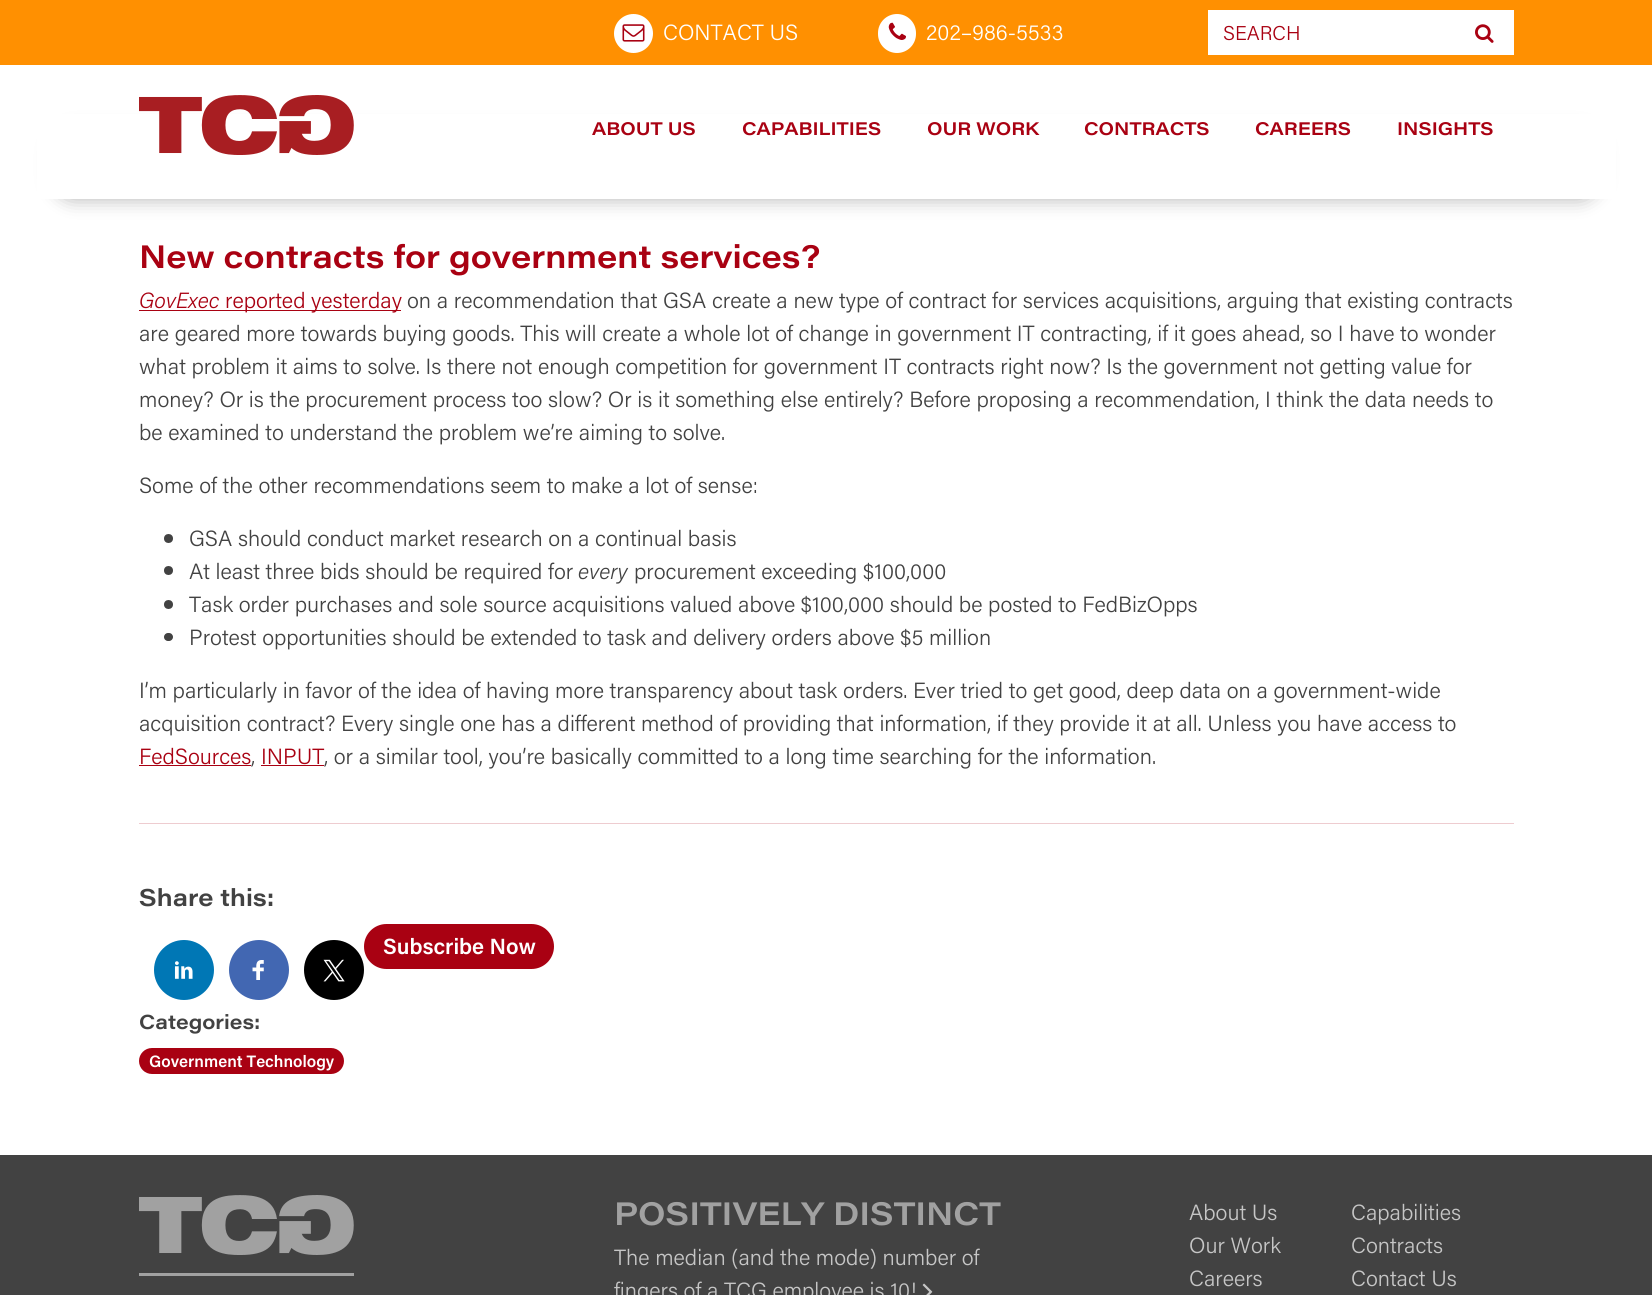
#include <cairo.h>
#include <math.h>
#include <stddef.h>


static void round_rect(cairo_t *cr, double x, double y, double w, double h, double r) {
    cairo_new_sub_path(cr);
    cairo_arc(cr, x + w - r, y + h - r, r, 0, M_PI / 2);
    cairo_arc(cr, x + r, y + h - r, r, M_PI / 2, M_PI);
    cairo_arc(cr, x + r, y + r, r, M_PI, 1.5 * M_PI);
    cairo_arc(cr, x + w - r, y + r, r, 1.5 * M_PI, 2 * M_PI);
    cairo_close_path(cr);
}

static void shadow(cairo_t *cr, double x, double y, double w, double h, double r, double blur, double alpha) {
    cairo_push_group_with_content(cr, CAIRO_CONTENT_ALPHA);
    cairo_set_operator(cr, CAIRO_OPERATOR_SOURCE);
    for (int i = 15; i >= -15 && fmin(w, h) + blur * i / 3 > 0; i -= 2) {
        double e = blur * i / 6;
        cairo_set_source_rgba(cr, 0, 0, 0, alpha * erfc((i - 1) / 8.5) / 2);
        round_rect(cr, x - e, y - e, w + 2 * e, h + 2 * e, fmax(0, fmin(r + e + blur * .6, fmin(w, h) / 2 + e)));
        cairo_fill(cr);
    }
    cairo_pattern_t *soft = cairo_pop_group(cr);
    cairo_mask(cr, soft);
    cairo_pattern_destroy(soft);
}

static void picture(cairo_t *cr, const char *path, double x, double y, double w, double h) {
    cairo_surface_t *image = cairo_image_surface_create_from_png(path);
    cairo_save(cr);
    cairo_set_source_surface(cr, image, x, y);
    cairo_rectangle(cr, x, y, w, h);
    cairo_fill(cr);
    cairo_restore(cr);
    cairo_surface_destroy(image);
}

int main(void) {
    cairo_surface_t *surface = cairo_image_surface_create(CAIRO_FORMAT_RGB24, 1652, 1295);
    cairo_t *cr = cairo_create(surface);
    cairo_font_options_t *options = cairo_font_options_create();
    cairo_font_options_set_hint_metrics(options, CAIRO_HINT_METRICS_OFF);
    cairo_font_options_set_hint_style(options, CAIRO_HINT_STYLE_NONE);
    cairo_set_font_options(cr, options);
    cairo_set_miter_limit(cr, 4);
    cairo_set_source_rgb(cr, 1, 1, 1);
    cairo_paint(cr);
    cairo_set_source_rgb(cr, 1, 0.565, 0.004);
    cairo_rectangle(cr, 0, 0, 1652, 65);
    cairo_fill(cr);
    cairo_set_source_rgb(cr, 1, 1, 1);
    cairo_arc(cr, 633.5, 33.5, 19.5, 0, 2 * M_PI);
    cairo_fill(cr);
    picture(cr, "img1.png", 622, 24, 23, 18);
    cairo_select_font_face(cr, "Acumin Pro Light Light", CAIRO_FONT_SLANT_NORMAL, CAIRO_FONT_WEIGHT_NORMAL);
    cairo_set_font_size(cr, 22);
    cairo_move_to(cr, 663, 40);
    cairo_show_text(cr, "CONTACT US");
    round_rect(cr, 878, 14, 38, 39, 19);
    cairo_fill(cr);
    picture(cr, "img2.png", 888, 22, 18, 18);
    cairo_move_to(cr, 926, 40);
    cairo_show_text(cr, "202–986-5533");
    cairo_rectangle(cr, 1208, 10, 306, 45);
    cairo_fill(cr);
    cairo_set_font_size(cr, 20);
    cairo_set_source_rgb(cr, 0.663, 0.004, 0.071);
    cairo_move_to(cr, 1223, 40);
    cairo_show_text(cr, "SEARCH");
    picture(cr, "img3.png", 1475, 24, 19, 19);
    cairo_set_source_rgb(cr, 0, 0, 0);
    shadow(cr, 54, 131, 1545, 68, 19, 9.5, 0.3);
    cairo_set_source_rgb(cr, 1, 1, 1);
    cairo_rectangle(cr, 37, 114, 1579, 85);
    cairo_fill(cr);
    picture(cr, "img4.png", 139, 95, 215, 60);
    cairo_select_font_face(cr, "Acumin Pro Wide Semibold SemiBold", CAIRO_FONT_SLANT_NORMAL, CAIRO_FONT_WEIGHT_NORMAL);
    cairo_set_font_size(cr, 18);
    cairo_set_source_rgb(cr, 0.663, 0.004, 0.071);
    cairo_move_to(cr, 592, 135);
    cairo_show_text(cr, "ABOUT US");
    cairo_move_to(cr, 742, 135);
    cairo_show_text(cr, "CAPABILITIES");
    cairo_move_to(cr, 927, 135);
    cairo_show_text(cr, "OUR WORK");
    cairo_move_to(cr, 1084, 135);
    cairo_show_text(cr, "CONTRACTS");
    cairo_move_to(cr, 1255, 135);
    cairo_show_text(cr, "CAREERS");
    cairo_move_to(cr, 1397, 135);
    cairo_show_text(cr, "INSIGHTS");
    cairo_set_font_size(cr, 32);
    cairo_move_to(cr, 139, 268);
    cairo_show_text(cr, "New contracts for government services?");
    cairo_select_font_face(cr, "Acumin Pro Light Light", CAIRO_FONT_SLANT_ITALIC, CAIRO_FONT_WEIGHT_NORMAL);
    cairo_set_font_size(cr, 22);
    cairo_move_to(cr, 139, 308);
    cairo_show_text(cr, "GovExec");
    cairo_rectangle(cr, 139, 310, 262, 1);
    cairo_fill(cr);
    cairo_select_font_face(cr, "Acumin Pro Light Light", CAIRO_FONT_SLANT_NORMAL, CAIRO_FONT_WEIGHT_NORMAL);
    cairo_move_to(cr, 225, 308);
    cairo_show_text(cr, "reported yesterday");
    cairo_set_source_rgb(cr, 0.259, 0.259, 0.259);
    cairo_move_to(cr, 407, 308);
    cairo_show_text(cr, "on a recommendation that GSA create a new type of contract for services acquisitions, arguing that existing contracts");
    cairo_move_to(cr, 139, 341);
    cairo_show_text(cr, "are geared more towards buying goods. This will create a whole lot of change in government IT contracting, if it goes ahead, so I have to wonder");
    cairo_move_to(cr, 139, 374);
    cairo_show_text(cr, "what problem it aims to solve. Is there not enough competition for government IT contracts right now? Is the government not getting value for");
    cairo_move_to(cr, 139, 407);
    cairo_show_text(cr, "money? Or is the procurement process too slow? Or is it something else entirely? Before proposing a recommendation, I think the data needs to");
    cairo_move_to(cr, 139, 440);
    cairo_show_text(cr, "be examined to understand the problem we’re aiming to solve.");
    cairo_move_to(cr, 139, 493);
    cairo_show_text(cr, "Some of the other recommendations seem to make a lot of sense:");
    cairo_new_path(cr);
    cairo_arc(cr, 168.5, 538.5, 4.5, 0, 2 * M_PI);
    cairo_fill(cr);
    cairo_move_to(cr, 189, 546);
    cairo_show_text(cr, "GSA should conduct market research on a continual basis");
    cairo_new_path(cr);
    cairo_arc(cr, 168.5, 570.5, 4.5, 0, 2 * M_PI);
    cairo_fill(cr);
    cairo_move_to(cr, 189, 579);
    cairo_show_text(cr, "At least three bids should be required for");
    cairo_select_font_face(cr, "Acumin Pro Light Light", CAIRO_FONT_SLANT_ITALIC, CAIRO_FONT_WEIGHT_NORMAL);
    cairo_move_to(cr, 578, 579);
    cairo_show_text(cr, "every");
    cairo_select_font_face(cr, "Acumin Pro Light Light", CAIRO_FONT_SLANT_NORMAL, CAIRO_FONT_WEIGHT_NORMAL);
    cairo_move_to(cr, 634, 579);
    cairo_show_text(cr, "procurement exceeding $100,000");
    cairo_new_path(cr);
    cairo_arc(cr, 168.5, 604.5, 4.5, 0, 2 * M_PI);
    cairo_fill(cr);
    cairo_move_to(cr, 189, 612);
    cairo_show_text(cr, "Task order purchases and sole source acquisitions valued above $100,000 should be posted to FedBizOpps");
    round_rect(cr, 164, 633, 9, 8, 4);
    cairo_fill(cr);
    cairo_move_to(cr, 189, 645);
    cairo_show_text(cr, "Protest opportunities should be extended to task and delivery orders above $5 million");
    cairo_move_to(cr, 139, 698);
    cairo_show_text(cr, "I’m particularly in favor of the idea of having more transparency about task orders. Ever tried to get good, deep data on a government-wide");
    cairo_move_to(cr, 139, 731);
    cairo_show_text(cr, "acquisition contract? Every single one has a different method of providing that information, if they provide it at all. Unless you have access to");
    cairo_set_source_rgb(cr, 0.663, 0.004, 0.071);
    cairo_move_to(cr, 139, 764);
    cairo_show_text(cr, "FedSources");
    cairo_rectangle(cr, 139, 765, 112, 1);
    cairo_fill(cr);
    cairo_set_source_rgb(cr, 0.259, 0.259, 0.259);
    cairo_move_to(cr, 251, 764);
    cairo_show_text(cr, ",");
    cairo_set_source_rgb(cr, 0.663, 0.004, 0.071);
    cairo_move_to(cr, 261, 764);
    cairo_show_text(cr, "INPUT");
    cairo_rectangle(cr, 261, 765, 63, 1);
    cairo_fill(cr);
    cairo_set_source_rgb(cr, 0.259, 0.259, 0.259);
    cairo_move_to(cr, 324, 764);
    cairo_show_text(cr, ", or a similar tool, you’re basically committed to a long time searching for the information.");
    cairo_set_source_rgb(cr, 0.933, 0.8, 0.816);
    cairo_rectangle(cr, 139, 823, 1375, 1);
    cairo_fill(cr);
    cairo_select_font_face(cr, "Acumin Pro Wide Semibold SemiBold", CAIRO_FONT_SLANT_NORMAL, CAIRO_FONT_WEIGHT_NORMAL);
    cairo_set_font_size(cr, 24);
    cairo_set_source_rgb(cr, 0.259, 0.259, 0.259);
    cairo_move_to(cr, 139, 906);
    cairo_show_text(cr, "Share this:");
    cairo_set_source_rgb(cr, 0, 0.467, 0.71);
    cairo_new_path(cr);
    cairo_arc(cr, 184, 970, 30, 0, 2 * M_PI);
    cairo_fill(cr);
    picture(cr, "img5.png", 174, 961, 19, 18);
    cairo_set_source_rgb(cr, 0.259, 0.404, 0.698);
    cairo_arc(cr, 259, 970, 30, 0, 2 * M_PI);
    cairo_fill(cr);
    picture(cr, "img6.png", 252, 960, 12, 20);
    cairo_set_source_rgb(cr, 0, 0, 0);
    cairo_arc(cr, 334, 970, 30, 0, 2 * M_PI);
    cairo_fill(cr);
    picture(cr, "img7.png", 323, 959, 22, 23);
    cairo_set_source_rgb(cr, 0.663, 0.004, 0.071);
    round_rect(cr, 364, 924, 190, 45, 22.5);
    cairo_fill(cr);
    cairo_select_font_face(cr, "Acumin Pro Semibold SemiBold", CAIRO_FONT_SLANT_NORMAL, CAIRO_FONT_WEIGHT_NORMAL);
    cairo_set_font_size(cr, 22);
    cairo_set_source_rgb(cr, 1, 1, 1);
    cairo_move_to(cr, 383, 954);
    cairo_show_text(cr, "Subscribe Now");
    cairo_select_font_face(cr, "Acumin Pro Wide Semibold SemiBold", CAIRO_FONT_SLANT_NORMAL, CAIRO_FONT_WEIGHT_NORMAL);
    cairo_set_font_size(cr, 20);
    cairo_set_source_rgb(cr, 0.259, 0.259, 0.259);
    cairo_move_to(cr, 139, 1029);
    cairo_show_text(cr, "Categories:");
    cairo_set_source_rgb(cr, 0.663, 0.004, 0.071);
    round_rect(cr, 139, 1048, 205, 26, 13);
    cairo_fill(cr);
    cairo_select_font_face(cr, "Acumin Pro Semibold SemiBold", CAIRO_FONT_SLANT_NORMAL, CAIRO_FONT_WEIGHT_NORMAL);
    cairo_set_font_size(cr, 16.5);
    cairo_set_source_rgb(cr, 1, 1, 1);
    cairo_move_to(cr, 149, 1067);
    cairo_show_text(cr, "Government Technology");
    cairo_set_source_rgb(cr, 0.259, 0.259, 0.259);
    cairo_rectangle(cr, 0, 1155, 1652, 140);
    cairo_fill(cr);
    cairo_set_source_rgb(cr, 0.631, 0.631, 0.631);
    cairo_rectangle(cr, 139, 1273, 215, 3);
    cairo_fill(cr);
    picture(cr, "img8.png", 139, 1195, 215, 60);
    cairo_select_font_face(cr, "Acumin Pro Wide Semibold SemiBold", CAIRO_FONT_SLANT_NORMAL, CAIRO_FONT_WEIGHT_NORMAL);
    cairo_set_font_size(cr, 32);
    cairo_move_to(cr, 614, 1225);
    cairo_show_text(cr, "POSITIVELY DISTINCT");
    cairo_select_font_face(cr, "Acumin Pro Light Light", CAIRO_FONT_SLANT_NORMAL, CAIRO_FONT_WEIGHT_NORMAL);
    cairo_set_font_size(cr, 22);
    cairo_set_source_rgb(cr, 0.776, 0.776, 0.776);
    cairo_move_to(cr, 614, 1265);
    cairo_show_text(cr, "The median (and the mode) number of");
    cairo_move_to(cr, 614, 1298);
    cairo_show_text(cr, "fingers of a TCG employee is 10!");
    picture(cr, "img9.png", 922, 1283, 11, 12);
    cairo_move_to(cr, 1189, 1220);
    cairo_show_text(cr, "About Us");
    cairo_move_to(cr, 1351, 1220);
    cairo_show_text(cr, "Capabilities");
    cairo_move_to(cr, 1189, 1253);
    cairo_show_text(cr, "Our Work");
    cairo_move_to(cr, 1351, 1253);
    cairo_show_text(cr, "Contracts");
    cairo_move_to(cr, 1189, 1286);
    cairo_show_text(cr, "Careers");
    cairo_move_to(cr, 1351, 1286);
    cairo_show_text(cr, "Contact Us");
    cairo_surface_write_to_png(surface, "page.png");
    cairo_font_options_destroy(options);
    cairo_destroy(cr);
    cairo_surface_destroy(surface);
    return 0;
}
